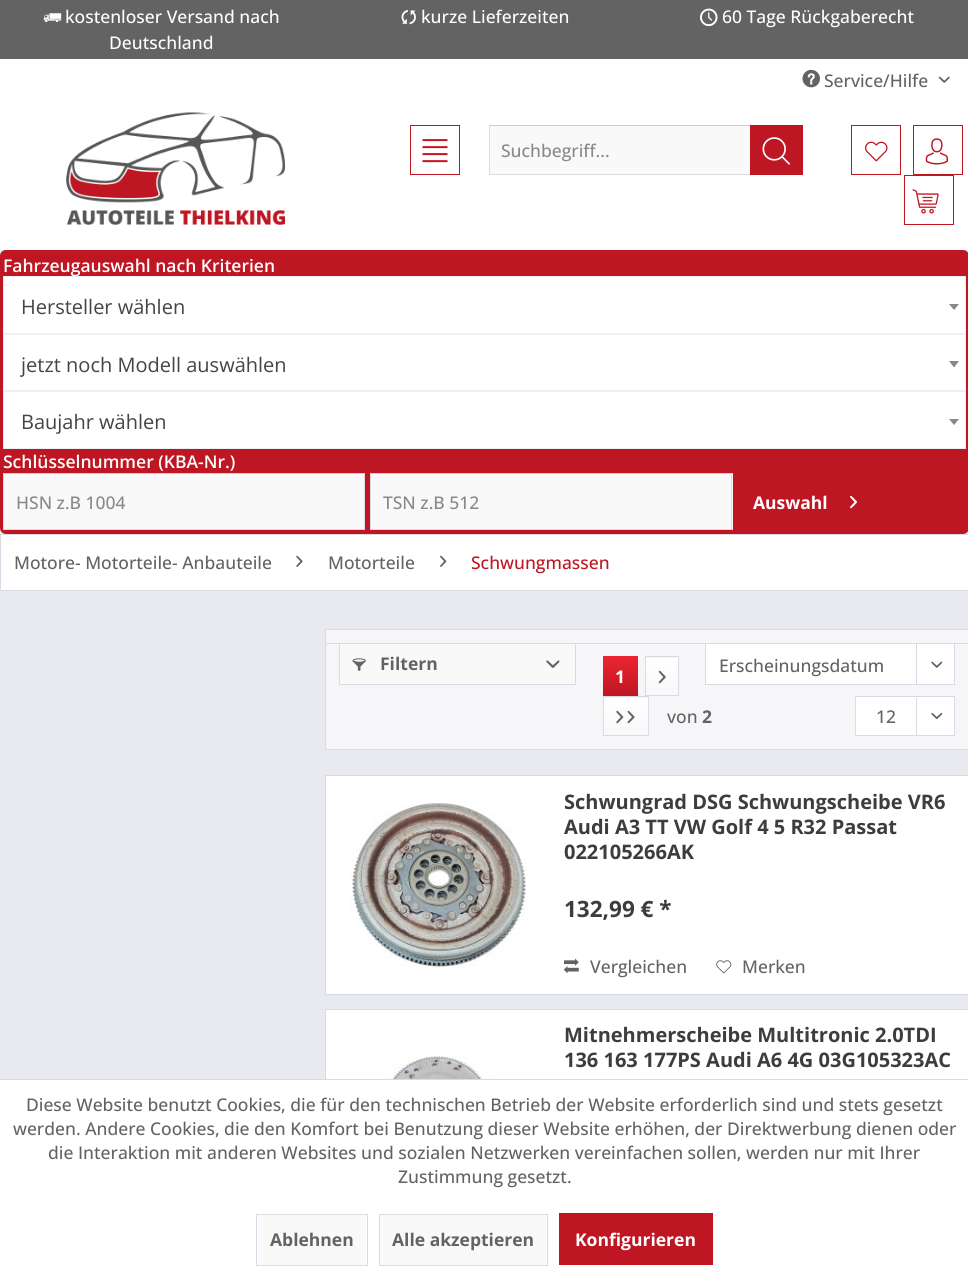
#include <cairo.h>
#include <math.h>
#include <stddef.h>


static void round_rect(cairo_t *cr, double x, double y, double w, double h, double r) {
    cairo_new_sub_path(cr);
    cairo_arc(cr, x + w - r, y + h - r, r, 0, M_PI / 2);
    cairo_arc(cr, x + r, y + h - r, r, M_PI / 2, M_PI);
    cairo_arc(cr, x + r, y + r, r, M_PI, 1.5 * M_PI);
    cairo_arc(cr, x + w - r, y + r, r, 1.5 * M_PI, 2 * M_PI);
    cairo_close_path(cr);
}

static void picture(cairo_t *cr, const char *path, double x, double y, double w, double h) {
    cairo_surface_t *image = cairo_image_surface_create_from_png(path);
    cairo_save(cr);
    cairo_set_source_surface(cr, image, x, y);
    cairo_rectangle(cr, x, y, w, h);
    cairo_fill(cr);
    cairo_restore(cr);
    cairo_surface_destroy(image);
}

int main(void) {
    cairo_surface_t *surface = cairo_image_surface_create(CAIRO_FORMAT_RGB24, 968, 1278);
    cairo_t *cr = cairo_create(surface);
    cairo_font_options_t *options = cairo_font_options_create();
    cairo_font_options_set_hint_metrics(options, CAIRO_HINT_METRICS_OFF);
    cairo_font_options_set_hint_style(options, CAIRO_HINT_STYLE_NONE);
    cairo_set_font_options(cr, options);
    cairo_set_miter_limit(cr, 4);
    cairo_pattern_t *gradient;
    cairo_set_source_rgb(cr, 0.914, 0.914, 0.941);
    cairo_paint(cr);
    cairo_set_source_rgb(cr, 1, 1, 1);
    cairo_rectangle(cr, 0, 59, 968, 191);
    cairo_fill(cr);
    cairo_set_source_rgb(cr, 0.388, 0.388, 0.388);
    cairo_rectangle(cr, 0, 0, 968, 59);
    cairo_fill(cr);
    picture(cr, "img1.png", 43, 13, 19, 10);
    cairo_select_font_face(cr, "Open Sans Medium", CAIRO_FONT_SLANT_NORMAL, CAIRO_FONT_WEIGHT_NORMAL);
    cairo_set_font_size(cr, 17.5);
    cairo_set_source_rgb(cr, 1, 1, 1);
    cairo_move_to(cr, 65, 23);
    cairo_show_text(cr, "kostenloser Versand nach");
    cairo_move_to(cr, 109, 49);
    cairo_show_text(cr, "Deutschland");
    picture(cr, "img2.png", 401, 10, 15, 15);
    cairo_move_to(cr, 421, 23);
    cairo_show_text(cr, "kurze Lieferzeiten");
    picture(cr, "img3.png", 700, 8, 18, 19);
    cairo_move_to(cr, 722, 23);
    cairo_show_text(cr, "60 Tage Rückgaberecht");
    picture(cr, "img4.png", 802, 69, 18, 19);
    cairo_set_source_rgb(cr, 0.388, 0.388, 0.388);
    cairo_move_to(cr, 824, 87);
    cairo_show_text(cr, "Service/Hilfe");
    picture(cr, "img5.png", 938, 76, 12, 7);
    picture(cr, "img6.png", 66, 112, 219, 113);
    cairo_rectangle(cr, 410.5, 125.5, 49, 49);
    cairo_set_source_rgb(cr, 0.745, 0.086, 0.133);
    cairo_set_line_width(cr, 1);
    cairo_stroke(cr);
    picture(cr, "img7.png", 422, 139, 26, 24);
    cairo_set_source_rgb(cr, 0.973, 0.973, 0.98);
    cairo_rectangle(cr, 490, 126, 260, 48);
    cairo_fill(cr);
    cairo_set_source_rgb(cr, 0.796, 0.796, 0.859);
    cairo_rectangle(cr, 489, 125, 261, 1);
    cairo_fill(cr);
    cairo_set_source_rgb(cr, 0.855, 0.855, 0.898);
    cairo_rectangle(cr, 489, 174, 261, 1);
    cairo_fill(cr);
    cairo_rectangle(cr, 489, 125, 1, 50);
    cairo_fill(cr);
    cairo_set_source_rgb(cr, 0.537, 0.537, 0.537);
    cairo_move_to(cr, 501, 157);
    cairo_show_text(cr, "Suchbegriff...");
    cairo_set_source_rgb(cr, 0.745, 0.086, 0.133);
    cairo_rectangle(cr, 750, 125, 53, 50);
    cairo_fill(cr);
    picture(cr, "img8.png", 762, 137, 28, 28);
    cairo_rectangle(cr, 851.5, 125.5, 49, 49);
    cairo_stroke(cr);
    picture(cr, "img9.png", 865, 141, 23, 21);
    cairo_rectangle(cr, 913.5, 125.5, 49, 49);
    cairo_stroke(cr);
    picture(cr, "img10.png", 925, 138, 24, 27);
    cairo_rectangle(cr, 904.5, 175.5, 49, 49);
    cairo_stroke(cr);
    picture(cr, "img11.png", 912, 189, 27, 25);
    round_rect(cr, 1.5, 251.5, 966, 281, 4.5);
    cairo_fill_preserve(cr);
    cairo_set_line_width(cr, 3);
    cairo_stroke(cr);
    cairo_select_font_face(cr, "Open Sans SemiBold", CAIRO_FONT_SLANT_NORMAL, CAIRO_FONT_WEIGHT_NORMAL);
    cairo_set_source_rgb(cr, 1, 1, 1);
    cairo_move_to(cr, 3, 272);
    cairo_show_text(cr, "Fahrzeugauswahl nach Kriterien");
    cairo_rectangle(cr, 3.5, 276.5, 962, 57);
    cairo_fill_preserve(cr);
    cairo_set_source_rgb(cr, 0.925, 0.937, 0.953);
    cairo_set_line_width(cr, 1);
    cairo_stroke(cr);
    cairo_select_font_face(cr, "Open Sans", CAIRO_FONT_SLANT_NORMAL, CAIRO_FONT_WEIGHT_NORMAL);
    cairo_set_font_size(cr, 20);
    cairo_set_source_rgb(cr, 0.267, 0.267, 0.267);
    cairo_move_to(cr, 21, 314);
    cairo_show_text(cr, "Hersteller wählen");
    cairo_set_source_rgb(cr, 0.533, 0.533, 0.533);
    cairo_new_path(cr);
    cairo_move_to(cr, 949, 304);
    cairo_line_to(cr, 959, 304);
    cairo_line_to(cr, 954, 310);
    cairo_close_path(cr);
    cairo_fill(cr);
    cairo_set_source_rgb(cr, 1, 1, 1);
    cairo_rectangle(cr, 3.5, 334.5, 962, 56);
    cairo_fill_preserve(cr);
    cairo_set_source_rgb(cr, 0.925, 0.937, 0.953);
    cairo_stroke(cr);
    cairo_set_source_rgb(cr, 0.267, 0.267, 0.267);
    cairo_move_to(cr, 21, 372);
    cairo_show_text(cr, "jetzt noch Modell auswählen");
    cairo_set_source_rgb(cr, 0.533, 0.533, 0.533);
    cairo_new_path(cr);
    cairo_move_to(cr, 949, 361);
    cairo_line_to(cr, 959, 361);
    cairo_line_to(cr, 954, 367.5);
    cairo_close_path(cr);
    cairo_fill(cr);
    cairo_set_source_rgb(cr, 1, 1, 1);
    cairo_rectangle(cr, 3.5, 391.5, 962, 57);
    cairo_fill_preserve(cr);
    cairo_set_source_rgb(cr, 0.925, 0.937, 0.953);
    cairo_stroke(cr);
    cairo_set_source_rgb(cr, 0.267, 0.267, 0.267);
    cairo_move_to(cr, 21, 429);
    cairo_show_text(cr, "Baujahr wählen");
    cairo_set_source_rgb(cr, 0.533, 0.533, 0.533);
    cairo_new_path(cr);
    cairo_move_to(cr, 949, 419);
    cairo_line_to(cr, 959, 419);
    cairo_line_to(cr, 954, 425);
    cairo_close_path(cr);
    cairo_fill(cr);
    cairo_select_font_face(cr, "Open Sans SemiBold", CAIRO_FONT_SLANT_NORMAL, CAIRO_FONT_WEIGHT_NORMAL);
    cairo_set_font_size(cr, 17.5);
    cairo_set_source_rgb(cr, 1, 1, 1);
    cairo_move_to(cr, 3, 468);
    cairo_show_text(cr, "Schlüsselnummer (KBA-Nr.)");
    cairo_set_source_rgb(cr, 0.973, 0.973, 0.98);
    cairo_rectangle(cr, 4, 474, 360, 55);
    cairo_fill(cr);
    cairo_set_source_rgb(cr, 0.796, 0.796, 0.859);
    cairo_rectangle(cr, 3, 473, 362, 1);
    cairo_fill(cr);
    cairo_set_source_rgb(cr, 0.855, 0.855, 0.898);
    cairo_rectangle(cr, 364, 473, 1, 57);
    cairo_fill(cr);
    cairo_rectangle(cr, 3, 529, 362, 1);
    cairo_fill(cr);
    cairo_rectangle(cr, 3, 473, 1, 57);
    cairo_fill(cr);
    cairo_select_font_face(cr, "Open Sans Medium", CAIRO_FONT_SLANT_NORMAL, CAIRO_FONT_WEIGHT_NORMAL);
    cairo_set_source_rgb(cr, 0.537, 0.537, 0.537);
    cairo_move_to(cr, 16, 509);
    cairo_show_text(cr, "HSN z.B 1004");
    cairo_set_source_rgb(cr, 0.973, 0.973, 0.98);
    cairo_rectangle(cr, 371, 474, 362, 55);
    cairo_fill(cr);
    cairo_set_source_rgb(cr, 0.796, 0.796, 0.859);
    cairo_rectangle(cr, 370, 473, 363, 1);
    cairo_fill(cr);
    cairo_set_source_rgb(cr, 0.855, 0.855, 0.898);
    cairo_rectangle(cr, 731, 473, 1, 57);
    cairo_fill(cr);
    cairo_rectangle(cr, 370, 529, 363, 1);
    cairo_fill(cr);
    cairo_rectangle(cr, 370, 473, 1, 57);
    cairo_fill(cr);
    cairo_set_source_rgb(cr, 0.537, 0.537, 0.537);
    cairo_move_to(cr, 383, 509);
    cairo_show_text(cr, "TSN z.B 512");
    cairo_select_font_face(cr, "Open Sans", CAIRO_FONT_SLANT_NORMAL, CAIRO_FONT_WEIGHT_BOLD);
    cairo_set_source_rgb(cr, 1, 1, 1);
    cairo_move_to(cr, 753, 509);
    cairo_show_text(cr, "Auswahl");
    picture(cr, "img12.png", 850, 495, 7, 14);
    cairo_rectangle(cr, 0.5, 534.5, 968, 56);
    cairo_fill_preserve(cr);
    cairo_set_source_rgb(cr, 0.855, 0.855, 0.898);
    cairo_stroke(cr);
    cairo_select_font_face(cr, "Open Sans Medium", CAIRO_FONT_SLANT_NORMAL, CAIRO_FONT_WEIGHT_NORMAL);
    cairo_set_source_rgb(cr, 0.388, 0.388, 0.388);
    cairo_move_to(cr, 14, 569);
    cairo_show_text(cr, "Motore- Motorteile- Anbauteile");
    picture(cr, "img13.png", 296, 555, 7, 12);
    cairo_move_to(cr, 328, 569);
    cairo_show_text(cr, "Motorteile");
    picture(cr, "img14.png", 440, 555, 7, 12);
    cairo_set_source_rgb(cr, 0.745, 0.086, 0.133);
    cairo_move_to(cr, 471, 569);
    cairo_show_text(cr, "Schwungmassen");
    cairo_set_source_rgb(cr, 0.961, 0.961, 0.973);
    cairo_rectangle(cr, 325.5, 629.5, 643, 120);
    cairo_fill_preserve(cr);
    cairo_set_source_rgb(cr, 0.855, 0.855, 0.898);
    cairo_stroke(cr);
    cairo_rectangle(cr, 326, 643, 642, 1);
    cairo_fill(cr);
    cairo_set_source_rgb(cr, 0.973, 0.973, 0.98);
    cairo_rectangle(cr, 339.5, 643.5, 236, 41);
    cairo_fill_preserve(cr);
    cairo_set_source_rgb(cr, 0.855, 0.855, 0.898);
    cairo_stroke(cr);
    picture(cr, "img15.png", 352, 658, 14, 13);
    cairo_select_font_face(cr, "Open Sans", CAIRO_FONT_SLANT_NORMAL, CAIRO_FONT_WEIGHT_BOLD);
    cairo_set_source_rgb(cr, 0.388, 0.388, 0.388);
    cairo_move_to(cr, 380, 670);
    cairo_show_text(cr, "Filtern");
    picture(cr, "img16.png", 546, 660, 14, 8);
    cairo_set_source_rgb(cr, 1, 1, 1);
    cairo_rectangle(cr, 705.5, 643.5, 249, 41);
    cairo_fill_preserve(cr);
    cairo_set_source_rgb(cr, 0.855, 0.855, 0.898);
    cairo_stroke(cr);
    cairo_select_font_face(cr, "Open Sans Medium", CAIRO_FONT_SLANT_NORMAL, CAIRO_FONT_WEIGHT_NORMAL);
    cairo_set_source_rgb(cr, 0.388, 0.388, 0.388);
    cairo_move_to(cr, 719, 672);
    cairo_show_text(cr, "Erscheinungsdatum");
    cairo_set_source_rgb(cr, 0.855, 0.855, 0.898);
    cairo_rectangle(cr, 916, 644, 1, 41);
    cairo_fill(cr);
    picture(cr, "img17.png", 931, 661, 12, 7);
    gradient = cairo_pattern_create_linear(620, 656, 620, 696);
    cairo_pattern_add_color_stop_rgba(gradient, 0, 0.925, 0.145, 0.2, 1);
    cairo_pattern_add_color_stop_rgba(gradient, 1, 0.745, 0.086, 0.133, 1);
    cairo_set_source(cr, gradient);
    cairo_pattern_destroy(gradient);
    cairo_rectangle(cr, 603, 656, 35, 40);
    cairo_fill(cr);
    cairo_select_font_face(cr, "Open Sans", CAIRO_FONT_SLANT_NORMAL, CAIRO_FONT_WEIGHT_BOLD);
    cairo_set_source_rgb(cr, 1, 1, 1);
    cairo_move_to(cr, 615, 683);
    cairo_show_text(cr, "1");
    gradient = cairo_pattern_create_linear(662, 658, 662, 695);
    cairo_pattern_add_color_stop_rgba(gradient, 0, 1, 1, 1, 1);
    cairo_pattern_add_color_stop_rgba(gradient, 1, 0.973, 0.973, 0.98, 1);
    cairo_set_source(cr, gradient);
    cairo_pattern_destroy(gradient);
    cairo_rectangle(cr, 646, 658, 32, 37);
    cairo_fill(cr);
    cairo_rectangle(cr, 645.5, 656.5, 33, 39);
    cairo_set_source_rgb(cr, 0.855, 0.855, 0.898);
    cairo_stroke(cr);
    picture(cr, "img18.png", 658, 670, 8, 14);
    gradient = cairo_pattern_create_linear(626, 698, 626, 735);
    cairo_pattern_add_color_stop_rgba(gradient, 0, 1, 1, 1, 1);
    cairo_pattern_add_color_stop_rgba(gradient, 1, 0.973, 0.973, 0.98, 1);
    cairo_set_source(cr, gradient);
    cairo_pattern_destroy(gradient);
    cairo_rectangle(cr, 604, 698, 44, 37);
    cairo_fill(cr);
    cairo_rectangle(cr, 603.5, 696.5, 45, 39);
    cairo_set_source_rgb(cr, 0.855, 0.855, 0.898);
    cairo_stroke(cr);
    picture(cr, "img19.png", 616, 710, 8, 14);
    picture(cr, "img20.png", 627, 710, 8, 14);
    cairo_select_font_face(cr, "Open Sans Medium", CAIRO_FONT_SLANT_NORMAL, CAIRO_FONT_WEIGHT_NORMAL);
    cairo_set_source_rgb(cr, 0.388, 0.388, 0.388);
    cairo_move_to(cr, 667, 723);
    cairo_show_text(cr, "von");
    cairo_select_font_face(cr, "Open Sans", CAIRO_FONT_SLANT_NORMAL, CAIRO_FONT_WEIGHT_BOLD);
    cairo_move_to(cr, 702, 723);
    cairo_show_text(cr, "2");
    cairo_set_source_rgb(cr, 1, 1, 1);
    cairo_rectangle(cr, 855.5, 696.5, 99, 39);
    cairo_fill_preserve(cr);
    cairo_set_source_rgb(cr, 0.855, 0.855, 0.898);
    cairo_stroke(cr);
    cairo_select_font_face(cr, "Open Sans Medium", CAIRO_FONT_SLANT_NORMAL, CAIRO_FONT_WEIGHT_NORMAL);
    cairo_set_source_rgb(cr, 0.388, 0.388, 0.388);
    cairo_move_to(cr, 876, 723);
    cairo_show_text(cr, "12");
    cairo_set_source_rgb(cr, 0.855, 0.855, 0.898);
    cairo_rectangle(cr, 916, 698, 1, 38);
    cairo_fill(cr);
    picture(cr, "img21.png", 931, 712, 12, 8);
    cairo_set_source_rgb(cr, 1, 1, 1);
    cairo_rectangle(cr, 325.5, 775.5, 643, 219);
    cairo_fill_preserve(cr);
    cairo_set_source_rgb(cr, 0.855, 0.855, 0.898);
    cairo_stroke(cr);
    picture(cr, "img22.png", 350, 803, 177, 165);
    cairo_select_font_face(cr, "Open Sans", CAIRO_FONT_SLANT_NORMAL, CAIRO_FONT_WEIGHT_BOLD);
    cairo_set_font_size(cr, 20);
    cairo_set_source_rgb(cr, 0.239, 0.239, 0.239);
    cairo_move_to(cr, 564, 809);
    cairo_show_text(cr, "Schwungrad DSG Schwungscheibe VR6");
    cairo_move_to(cr, 564, 834);
    cairo_show_text(cr, "Audi A3 TT VW Golf 4 5 R32 Passat");
    cairo_move_to(cr, 564, 859);
    cairo_show_text(cr, "022105266AK");
    cairo_set_font_size(cr, 22.5);
    cairo_move_to(cr, 564, 917);
    cairo_show_text(cr, "132,99 € *");
    picture(cr, "img23.png", 564, 958, 15, 16);
    cairo_select_font_face(cr, "Open Sans Medium", CAIRO_FONT_SLANT_NORMAL, CAIRO_FONT_WEIGHT_NORMAL);
    cairo_set_font_size(cr, 17.5);
    cairo_set_source_rgb(cr, 0.388, 0.388, 0.388);
    cairo_move_to(cr, 590, 973);
    cairo_show_text(cr, "Vergleichen");
    picture(cr, "img24.png", 716, 960, 16, 14);
    cairo_move_to(cr, 742, 973);
    cairo_show_text(cr, "Merken");
    cairo_set_source_rgb(cr, 1, 1, 1);
    cairo_rectangle(cr, 326, 1010, 642, 69);
    cairo_fill(cr);
    cairo_rectangle(cr, 325.5, 1009.5, 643, 194);
    cairo_set_source_rgb(cr, 0.855, 0.855, 0.898);
    cairo_stroke(cr);
    picture(cr, "img25.png", 379, 1056, 112, 23);
    cairo_select_font_face(cr, "Open Sans", CAIRO_FONT_SLANT_NORMAL, CAIRO_FONT_WEIGHT_BOLD);
    cairo_set_font_size(cr, 20);
    cairo_set_source_rgb(cr, 0.239, 0.239, 0.239);
    cairo_move_to(cr, 564, 1042);
    cairo_show_text(cr, "Mitnehmerscheibe Multitronic 2.0TDI");
    cairo_move_to(cr, 564, 1067);
    cairo_show_text(cr, "136 163 177PS Audi A6 4G 03G105323AC");
    cairo_set_source_rgb(cr, 1, 1, 1);
    cairo_rectangle(cr, 0, 1080, 968, 198);
    cairo_fill(cr);
    cairo_set_source_rgb(cr, 0.855, 0.855, 0.898);
    cairo_rectangle(cr, 0, 1079, 968, 1);
    cairo_fill(cr);
    cairo_select_font_face(cr, "Open Sans Medium", CAIRO_FONT_SLANT_NORMAL, CAIRO_FONT_WEIGHT_NORMAL);
    cairo_set_font_size(cr, 17.5);
    cairo_set_source_rgb(cr, 0.388, 0.388, 0.388);
    cairo_move_to(cr, 26, 1111);
    cairo_show_text(cr, "Diese Website benutzt Cookies, die für den technischen Betrieb der Website erforderlich sind und stets gesetzt");
    cairo_move_to(cr, 13, 1135);
    cairo_show_text(cr, "werden. Andere Cookies, die den Komfort bei Benutzung dieser Website erhöhen, der Direktwerbung dienen oder");
    cairo_move_to(cr, 48, 1159);
    cairo_show_text(cr, "die Interaktion mit anderen Websites und sozialen Netzwerken vereinfachen sollen, werden nur mit Ihrer");
    cairo_move_to(cr, 398, 1183);
    cairo_show_text(cr, "Zustimmung gesetzt.");
    cairo_set_source_rgb(cr, 0.973, 0.973, 0.98);
    cairo_rectangle(cr, 258, 1215, 108, 50);
    cairo_fill(cr);
    cairo_rectangle(cr, 256.5, 1214.5, 111, 51);
    cairo_set_source_rgb(cr, 0.855, 0.855, 0.898);
    cairo_stroke(cr);
    cairo_select_font_face(cr, "Open Sans", CAIRO_FONT_SLANT_NORMAL, CAIRO_FONT_WEIGHT_BOLD);
    cairo_set_source_rgb(cr, 0.388, 0.388, 0.388);
    cairo_move_to(cr, 270, 1246);
    cairo_show_text(cr, "Ablehnen");
    cairo_set_source_rgb(cr, 0.973, 0.973, 0.98);
    cairo_rectangle(cr, 380, 1215, 166, 50);
    cairo_fill(cr);
    cairo_rectangle(cr, 379.5, 1214.5, 168, 51);
    cairo_set_source_rgb(cr, 0.855, 0.855, 0.898);
    cairo_stroke(cr);
    cairo_set_source_rgb(cr, 0.388, 0.388, 0.388);
    cairo_move_to(cr, 392, 1246);
    cairo_show_text(cr, "Alle akzeptieren");
    cairo_set_source_rgb(cr, 0.745, 0.086, 0.133);
    cairo_rectangle(cr, 559, 1213, 154, 52);
    cairo_fill(cr);
    cairo_set_source_rgb(cr, 1, 1, 1);
    cairo_move_to(cr, 575, 1246);
    cairo_show_text(cr, "Konfigurieren");
    cairo_surface_write_to_png(surface, "page.png");
    cairo_font_options_destroy(options);
    cairo_destroy(cr);
    cairo_surface_destroy(surface);
    return 0;
}
